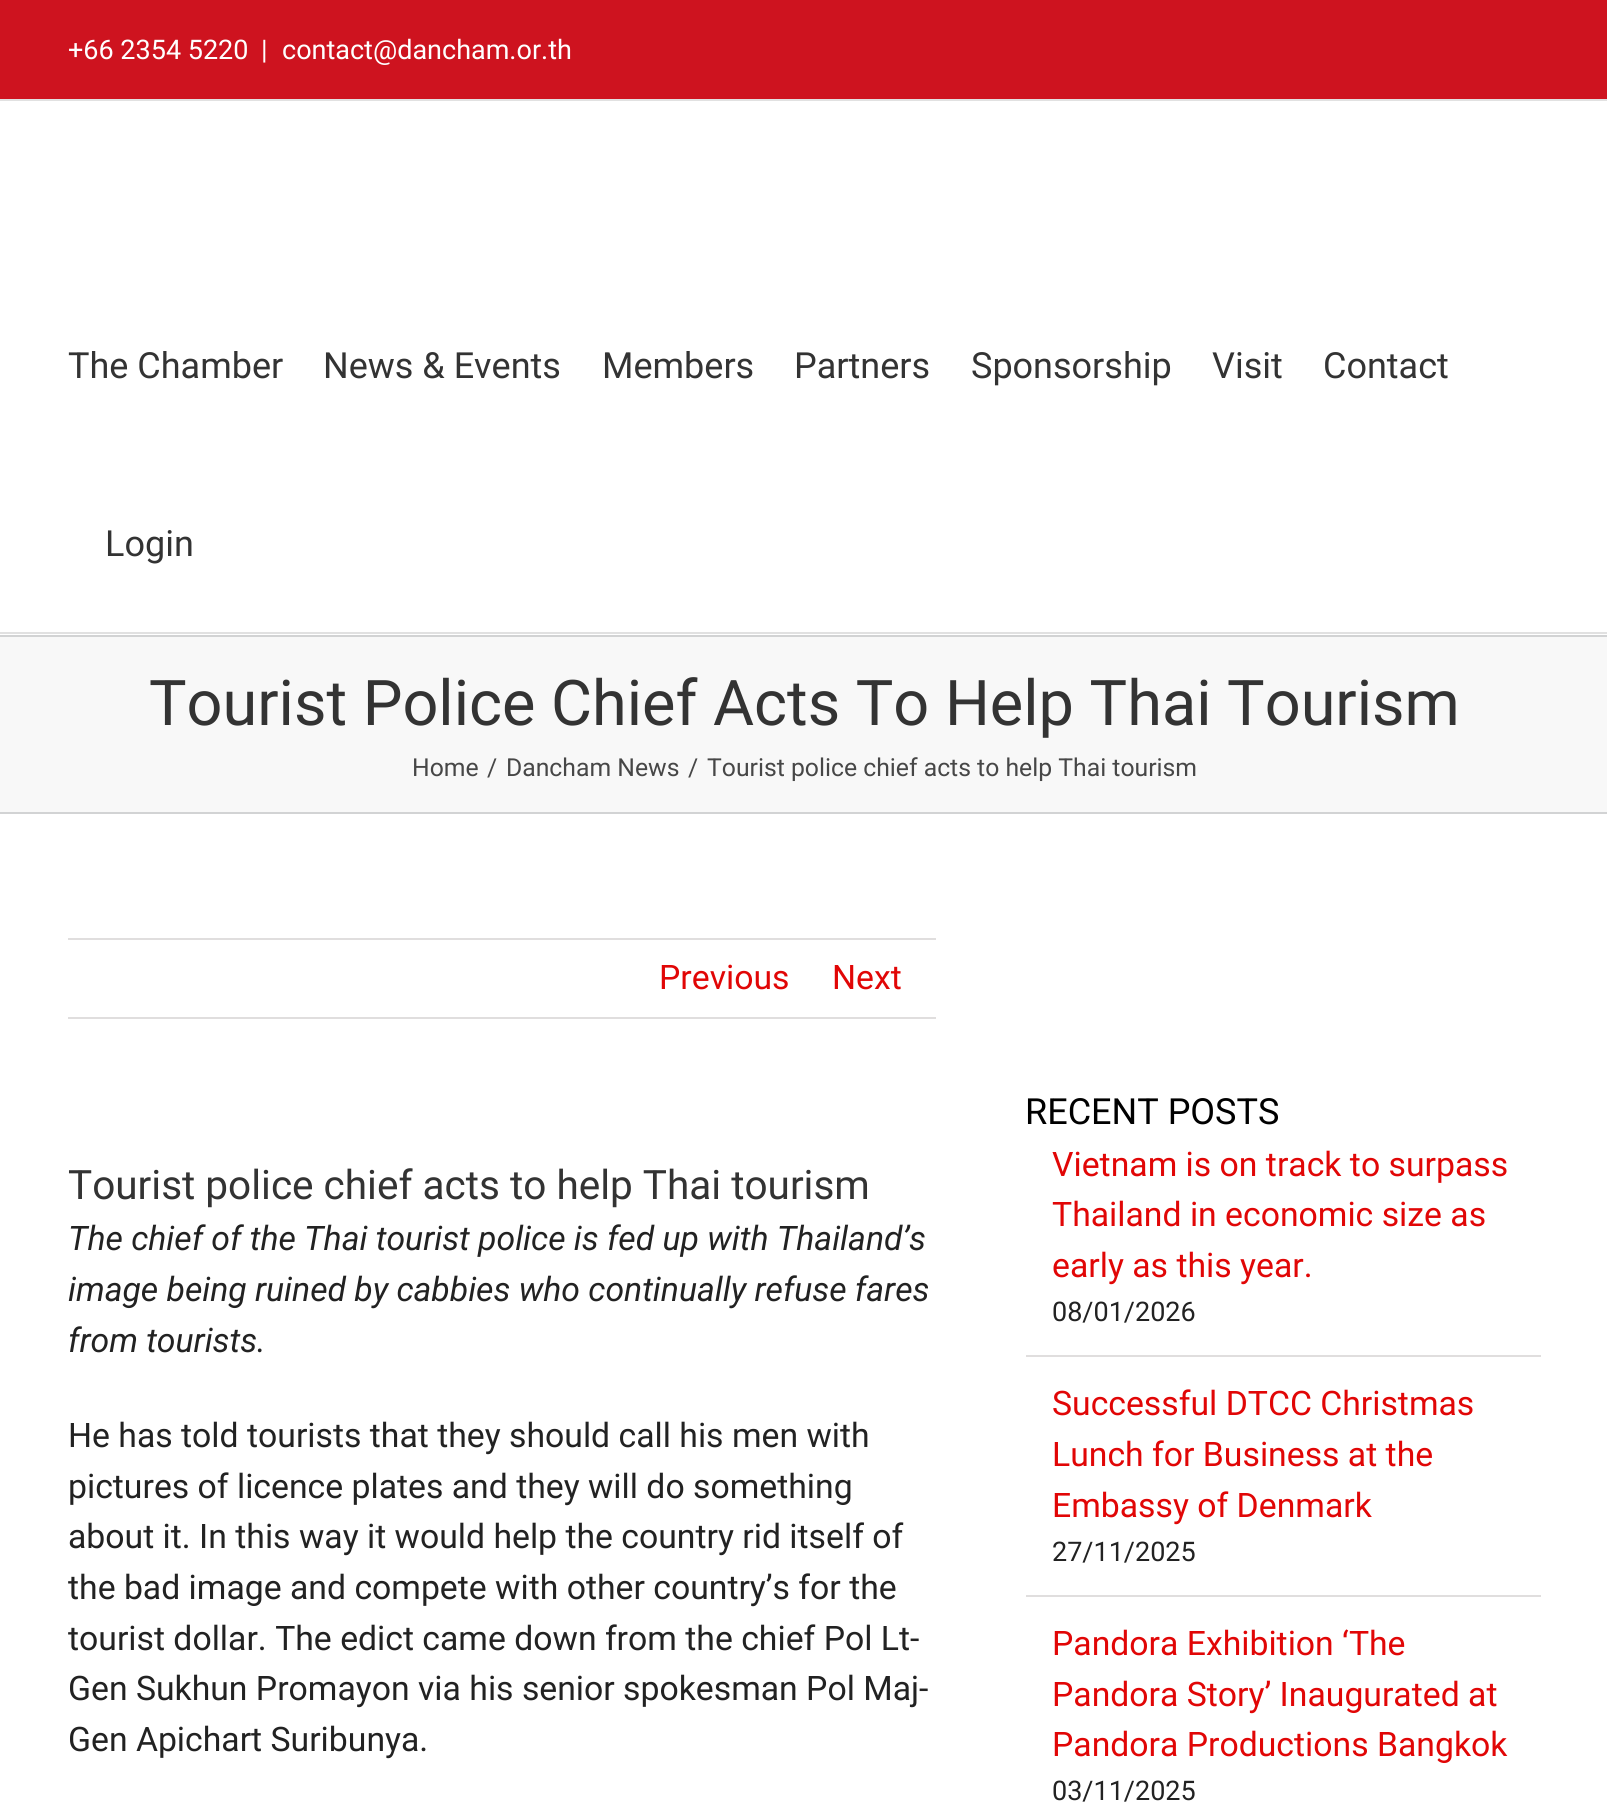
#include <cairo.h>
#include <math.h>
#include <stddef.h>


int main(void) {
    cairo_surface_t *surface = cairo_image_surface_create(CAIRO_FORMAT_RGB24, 1607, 1816);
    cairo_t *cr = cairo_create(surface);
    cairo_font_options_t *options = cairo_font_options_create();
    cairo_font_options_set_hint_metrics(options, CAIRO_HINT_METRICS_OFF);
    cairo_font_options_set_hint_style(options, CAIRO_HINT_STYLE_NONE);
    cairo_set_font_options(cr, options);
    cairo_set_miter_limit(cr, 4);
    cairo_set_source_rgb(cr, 1, 1, 1);
    cairo_paint(cr);
    cairo_set_source_rgb(cr, 0.808, 0.078, 0.122);
    cairo_rectangle(cr, 0, 0, 1607, 99);
    cairo_fill(cr);
    cairo_set_source_rgb(cr, 0.882, 0.882, 0.882);
    cairo_rectangle(cr, 0, 99, 1607, 2);
    cairo_fill(cr);
    cairo_select_font_face(cr, "Roboto", CAIRO_FONT_SLANT_NORMAL, CAIRO_FONT_WEIGHT_NORMAL);
    cairo_set_font_size(cr, 27);
    cairo_set_source_rgb(cr, 1, 1, 1);
    cairo_move_to(cr, 68, 59);
    cairo_show_text(cr, "+66 2354 5220");
    cairo_move_to(cr, 261, 59);
    cairo_show_text(cr, "|");
    cairo_move_to(cr, 282, 59);
    cairo_show_text(cr, "contact@dancham.or.th");
    cairo_set_source_rgb(cr, 0.882, 0.882, 0.882);
    cairo_rectangle(cr, 0, 632, 1607, 2);
    cairo_fill(cr);
    cairo_set_font_size(cr, 36);
    cairo_set_source_rgb(cr, 0.2, 0.2, 0.2);
    cairo_move_to(cr, 68, 378);
    cairo_show_text(cr, "The Chamber");
    cairo_move_to(cr, 323, 378);
    cairo_show_text(cr, "News & Events");
    cairo_move_to(cr, 602, 378);
    cairo_show_text(cr, "Members");
    cairo_move_to(cr, 794, 378);
    cairo_show_text(cr, "Partners");
    cairo_move_to(cr, 971, 378);
    cairo_show_text(cr, "Sponsorship");
    cairo_move_to(cr, 1212, 378);
    cairo_show_text(cr, "Visit");
    cairo_move_to(cr, 1323, 378);
    cairo_show_text(cr, "Contact");
    cairo_move_to(cr, 105, 556);
    cairo_show_text(cr, "Login");
    cairo_set_source_rgb(cr, 0.969, 0.969, 0.969);
    cairo_rectangle(cr, 0, 637, 1607, 175);
    cairo_fill(cr);
    cairo_set_source_rgb(cr, 0.824, 0.827, 0.831);
    cairo_rectangle(cr, 0, 635, 1607, 2);
    cairo_fill(cr);
    cairo_rectangle(cr, 0, 812, 1607, 2);
    cairo_fill(cr);
    cairo_set_font_size(cr, 63);
    cairo_set_source_rgb(cr, 0.2, 0.2, 0.2);
    cairo_move_to(cr, 149, 725);
    cairo_show_text(cr, "Tourist Police Chief Acts To Help Thai Tourism");
    cairo_set_font_size(cr, 24.75);
    cairo_set_source_rgb(cr, 0.278, 0.278, 0.278);
    cairo_move_to(cr, 412, 776);
    cairo_show_text(cr, "Home");
    cairo_move_to(cr, 487, 776);
    cairo_show_text(cr, "/");
    cairo_move_to(cr, 506, 776);
    cairo_show_text(cr, "Dancham News");
    cairo_move_to(cr, 688, 776);
    cairo_show_text(cr, "/");
    cairo_move_to(cr, 707, 776);
    cairo_show_text(cr, "Tourist police chief acts to help Thai tourism");
    cairo_set_source_rgb(cr, 0.878, 0.871, 0.871);
    cairo_rectangle(cr, 68, 938, 868, 2);
    cairo_fill(cr);
    cairo_rectangle(cr, 68, 1017, 868, 2);
    cairo_fill(cr);
    cairo_set_font_size(cr, 33.75);
    cairo_set_source_rgb(cr, 0.882, 0.027, 0.027);
    cairo_move_to(cr, 659, 989);
    cairo_show_text(cr, "Previous");
    cairo_move_to(cr, 832, 989);
    cairo_show_text(cr, "Next");
    cairo_set_font_size(cr, 40.5);
    cairo_set_source_rgb(cr, 0.2, 0.2, 0.2);
    cairo_move_to(cr, 68, 1199);
    cairo_show_text(cr, "Tourist police chief acts to help Thai tourism");
    cairo_select_font_face(cr, "Roboto", CAIRO_FONT_SLANT_ITALIC, CAIRO_FONT_WEIGHT_NORMAL);
    cairo_set_font_size(cr, 33.75);
    cairo_set_source_rgb(cr, 0.133, 0.133, 0.133);
    cairo_move_to(cr, 68, 1250);
    cairo_show_text(cr, "The chief of the Thai tourist police is fed up with Thailand’s");
    cairo_move_to(cr, 68, 1301);
    cairo_show_text(cr, "image being ruined by cabbies who continually refuse fares");
    cairo_move_to(cr, 68, 1352);
    cairo_show_text(cr, "from tourists.");
    cairo_select_font_face(cr, "Roboto", CAIRO_FONT_SLANT_NORMAL, CAIRO_FONT_WEIGHT_NORMAL);
    cairo_move_to(cr, 68, 1447);
    cairo_show_text(cr, "He has told tourists that they should call his men with");
    cairo_move_to(cr, 68, 1498);
    cairo_show_text(cr, "pictures of licence plates and they will do something");
    cairo_move_to(cr, 68, 1548);
    cairo_show_text(cr, "about it. In this way it would help the country rid itself of");
    cairo_move_to(cr, 68, 1599);
    cairo_show_text(cr, "the bad image and compete with other country’s for the");
    cairo_move_to(cr, 68, 1650);
    cairo_show_text(cr, "tourist dollar. The edict came down from the chief Pol Lt-");
    cairo_move_to(cr, 68, 1700);
    cairo_show_text(cr, "Gen Sukhun Promayon via his senior spokesman Pol Maj-");
    cairo_move_to(cr, 68, 1751);
    cairo_show_text(cr, "Gen Apichart Suribunya.");
    cairo_set_font_size(cr, 36);
    cairo_set_source_rgb(cr, 0, 0, 0);
    cairo_move_to(cr, 1025, 1124);
    cairo_show_text(cr, "RECENT POSTS");
    cairo_set_source_rgb(cr, 0.878, 0.871, 0.871);
    cairo_rectangle(cr, 1026, 1355, 515, 2);
    cairo_fill(cr);
    cairo_set_font_size(cr, 33.75);
    cairo_set_source_rgb(cr, 0.882, 0.027, 0.027);
    cairo_move_to(cr, 1052, 1176);
    cairo_show_text(cr, "Vietnam is on track to surpass");
    cairo_move_to(cr, 1052, 1226);
    cairo_show_text(cr, "Thailand in economic size as");
    cairo_move_to(cr, 1052, 1277);
    cairo_show_text(cr, "early as this year.");
    cairo_set_font_size(cr, 27);
    cairo_set_source_rgb(cr, 0.133, 0.133, 0.133);
    cairo_move_to(cr, 1052, 1321);
    cairo_show_text(cr, "08/01/2026");
    cairo_set_source_rgb(cr, 0.878, 0.871, 0.871);
    cairo_rectangle(cr, 1026, 1595, 515, 2);
    cairo_fill(cr);
    cairo_set_font_size(cr, 33.75);
    cairo_set_source_rgb(cr, 0.882, 0.027, 0.027);
    cairo_move_to(cr, 1052, 1415);
    cairo_show_text(cr, "Successful DTCC Christmas");
    cairo_move_to(cr, 1052, 1466);
    cairo_show_text(cr, "Lunch for Business at the");
    cairo_move_to(cr, 1052, 1517);
    cairo_show_text(cr, "Embassy of Denmark");
    cairo_set_font_size(cr, 27);
    cairo_set_source_rgb(cr, 0.133, 0.133, 0.133);
    cairo_move_to(cr, 1052, 1561);
    cairo_show_text(cr, "27/11/2025");
    cairo_set_font_size(cr, 33.75);
    cairo_set_source_rgb(cr, 0.882, 0.027, 0.027);
    cairo_move_to(cr, 1052, 1655);
    cairo_show_text(cr, "Pandora Exhibition ‘The");
    cairo_move_to(cr, 1052, 1706);
    cairo_show_text(cr, "Pandora Story’ Inaugurated at");
    cairo_move_to(cr, 1052, 1756);
    cairo_show_text(cr, "Pandora Productions Bangkok");
    cairo_set_font_size(cr, 27);
    cairo_set_source_rgb(cr, 0.133, 0.133, 0.133);
    cairo_move_to(cr, 1052, 1800);
    cairo_show_text(cr, "03/11/2025");
    cairo_surface_write_to_png(surface, "page.png");
    cairo_font_options_destroy(options);
    cairo_destroy(cr);
    cairo_surface_destroy(surface);
    return 0;
}
